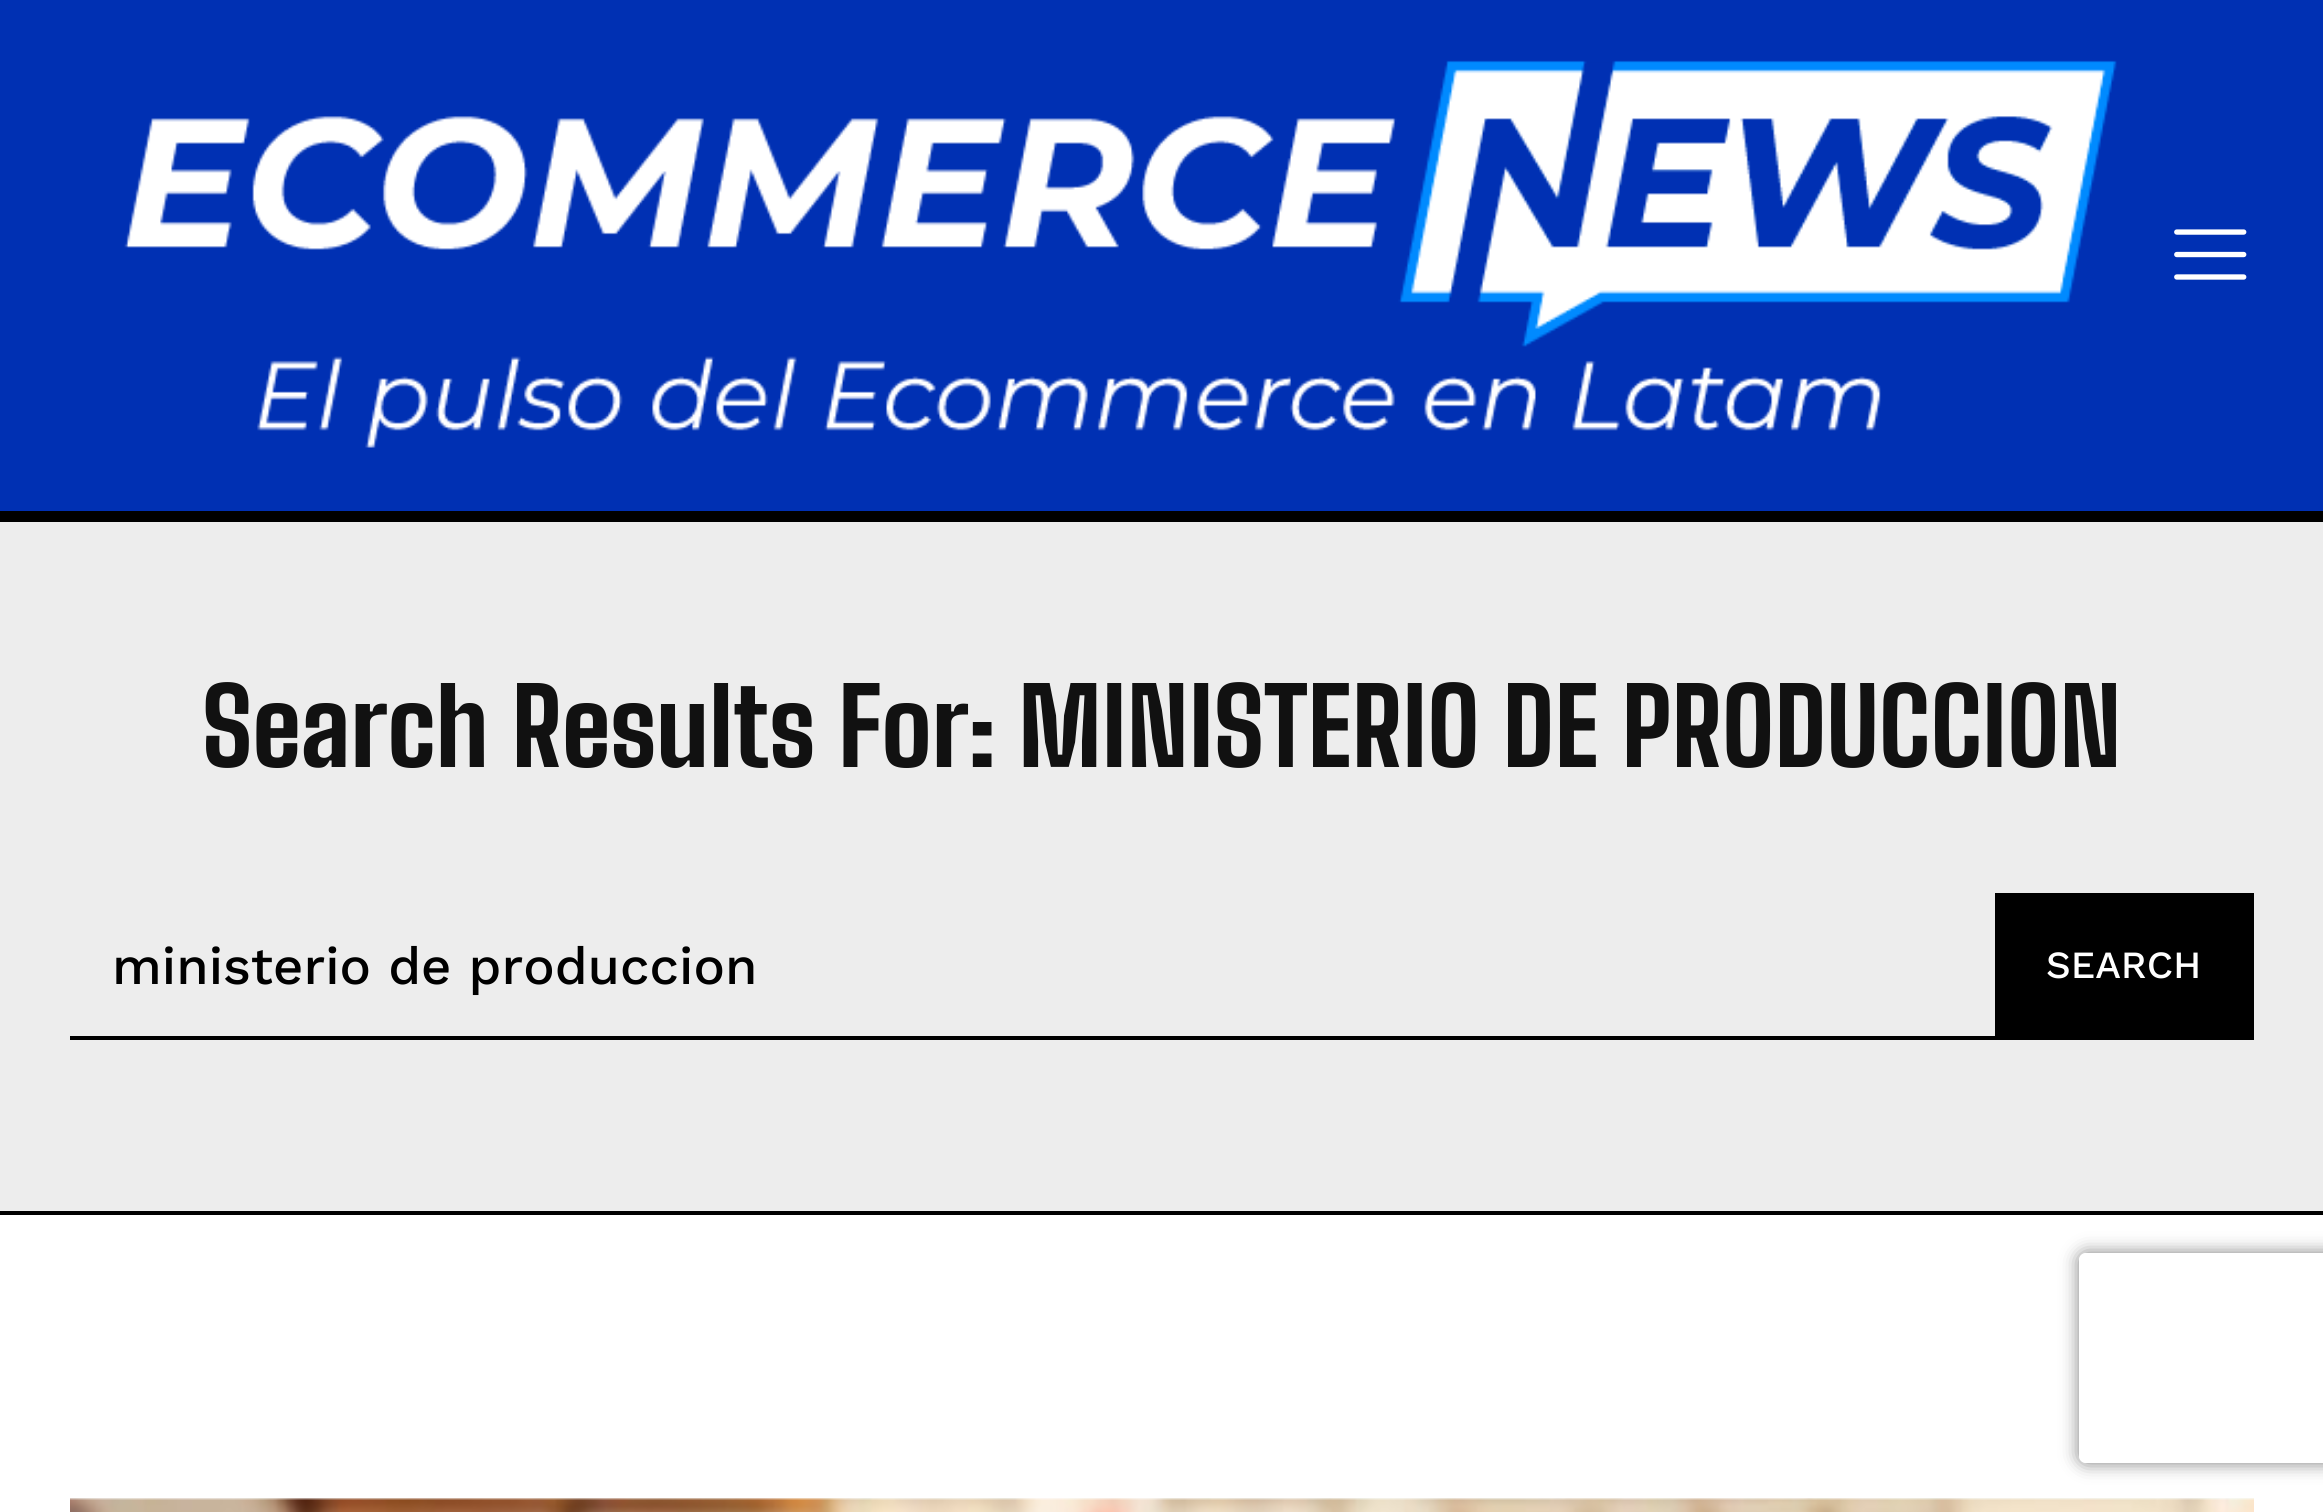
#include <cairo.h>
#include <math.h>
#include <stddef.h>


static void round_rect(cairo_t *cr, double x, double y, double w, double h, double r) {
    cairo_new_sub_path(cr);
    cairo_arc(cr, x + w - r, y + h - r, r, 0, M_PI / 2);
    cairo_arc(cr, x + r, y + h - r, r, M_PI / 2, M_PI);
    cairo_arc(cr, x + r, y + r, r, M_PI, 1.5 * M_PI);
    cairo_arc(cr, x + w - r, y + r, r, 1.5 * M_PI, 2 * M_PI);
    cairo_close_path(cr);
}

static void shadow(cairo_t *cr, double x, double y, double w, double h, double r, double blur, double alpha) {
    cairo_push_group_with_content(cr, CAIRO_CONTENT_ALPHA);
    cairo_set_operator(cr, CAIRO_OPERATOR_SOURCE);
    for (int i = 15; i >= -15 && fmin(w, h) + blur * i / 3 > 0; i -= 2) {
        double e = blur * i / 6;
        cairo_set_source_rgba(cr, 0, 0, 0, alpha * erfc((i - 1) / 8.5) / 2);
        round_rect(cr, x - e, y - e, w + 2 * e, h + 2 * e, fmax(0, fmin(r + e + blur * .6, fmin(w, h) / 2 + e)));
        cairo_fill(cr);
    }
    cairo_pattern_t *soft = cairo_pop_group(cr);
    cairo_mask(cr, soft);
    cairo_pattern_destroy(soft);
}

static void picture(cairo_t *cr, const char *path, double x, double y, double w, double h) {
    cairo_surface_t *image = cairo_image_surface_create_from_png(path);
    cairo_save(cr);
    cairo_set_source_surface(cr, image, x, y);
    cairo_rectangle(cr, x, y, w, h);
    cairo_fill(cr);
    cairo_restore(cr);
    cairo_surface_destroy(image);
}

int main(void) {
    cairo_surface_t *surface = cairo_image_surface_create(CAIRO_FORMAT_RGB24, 2323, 1512);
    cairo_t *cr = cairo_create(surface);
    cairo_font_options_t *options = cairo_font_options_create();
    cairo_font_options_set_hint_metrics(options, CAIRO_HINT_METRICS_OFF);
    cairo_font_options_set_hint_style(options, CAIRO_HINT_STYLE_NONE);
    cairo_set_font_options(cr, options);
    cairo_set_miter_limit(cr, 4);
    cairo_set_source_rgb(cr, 1, 1, 1);
    cairo_paint(cr);
    cairo_set_source_rgb(cr, 0, 0, 0);
    cairo_rectangle(cr, 0, 511, 2323, 11);
    cairo_fill(cr);
    cairo_set_source_rgb(cr, 0, 0.188, 0.702);
    cairo_rectangle(cr, 0, 0, 2323, 511);
    cairo_fill(cr);
    picture(cr, "img1.png", 124, 60, 1993, 388);
    picture(cr, "img2.png", 2174, 229, 73, 51);
    cairo_set_source_rgb(cr, 0.929, 0.929, 0.929);
    cairo_rectangle(cr, 0, 522, 2323, 689);
    cairo_fill(cr);
    cairo_set_source_rgb(cr, 0, 0, 0);
    cairo_rectangle(cr, 0, 1211, 2323, 4);
    cairo_fill(cr);
    cairo_select_font_face(cr, "Big Shoulders Text ExtraBold", CAIRO_FONT_SLANT_NORMAL, CAIRO_FONT_WEIGHT_NORMAL);
    cairo_set_font_size(cr, 105);
    cairo_set_source_rgb(cr, 0.067, 0.067, 0.067);
    cairo_move_to(cr, 202, 767);
    cairo_show_text(cr, "Search Results For: MINISTERIO DE PRODUCCION");
    cairo_select_font_face(cr, "Work Sans Medium", CAIRO_FONT_SLANT_NORMAL, CAIRO_FONT_WEIGHT_NORMAL);
    cairo_set_font_size(cr, 52.5);
    cairo_set_source_rgb(cr, 0, 0, 0);
    cairo_move_to(cr, 112, 984);
    cairo_show_text(cr, "ministerio de produccion");
    cairo_rectangle(cr, 1995, 893, 259, 147);
    cairo_fill(cr);
    cairo_set_font_size(cr, 38.5);
    cairo_set_source_rgb(cr, 1, 1, 1);
    cairo_move_to(cr, 2046, 978);
    cairo_show_text(cr, "SEARCH");
    cairo_set_source_rgb(cr, 0, 0, 0);
    cairo_rectangle(cr, 70, 1036, 1925, 4);
    cairo_fill(cr);
    picture(cr, "img3.png", 70, 1498, 2184, 14);
    cairo_save(cr);
    cairo_set_fill_rule(cr, CAIRO_FILL_RULE_EVEN_ODD);
    cairo_new_path(cr);
    cairo_move_to(cr, 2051, 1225);
    cairo_line_to(cr, 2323, 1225);
    cairo_line_to(cr, 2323, 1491);
    cairo_line_to(cr, 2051, 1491);
    cairo_close_path(cr);
    cairo_move_to(cr, 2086, 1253);
    cairo_line_to(cr, 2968, 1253);
    cairo_curve_to(cr, 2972, 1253, 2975, 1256, 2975, 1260);
    cairo_line_to(cr, 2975, 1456);
    cairo_curve_to(cr, 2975, 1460, 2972, 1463, 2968, 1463);
    cairo_line_to(cr, 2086, 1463);
    cairo_curve_to(cr, 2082, 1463, 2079, 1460, 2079, 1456);
    cairo_line_to(cr, 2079, 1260);
    cairo_curve_to(cr, 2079, 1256, 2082, 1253, 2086, 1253);
    cairo_close_path(cr);
    cairo_clip(cr);
    cairo_set_source_rgb(cr, 0.502, 0.502, 0.502);
    shadow(cr, 2079, 1253, 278, 210, 7, 9, 1);
    cairo_restore(cr);
    cairo_surface_write_to_png(surface, "page.png");
    cairo_font_options_destroy(options);
    cairo_destroy(cr);
    cairo_surface_destroy(surface);
    return 0;
}
